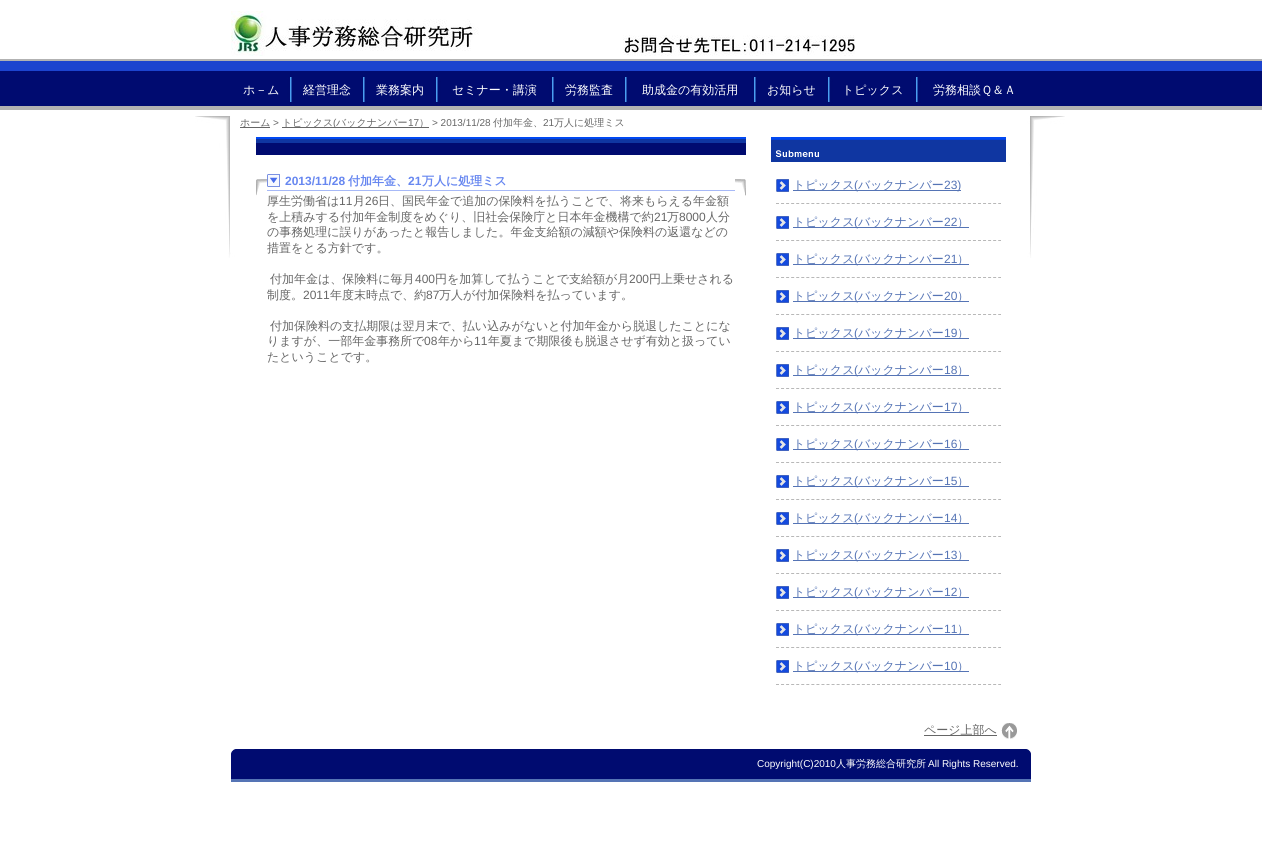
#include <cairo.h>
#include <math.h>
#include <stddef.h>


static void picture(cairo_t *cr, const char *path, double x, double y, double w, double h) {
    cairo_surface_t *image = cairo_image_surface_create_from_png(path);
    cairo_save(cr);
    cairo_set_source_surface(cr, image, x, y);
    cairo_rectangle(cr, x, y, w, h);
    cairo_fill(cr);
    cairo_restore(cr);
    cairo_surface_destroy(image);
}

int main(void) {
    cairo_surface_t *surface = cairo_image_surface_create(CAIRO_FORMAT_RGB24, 1262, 853);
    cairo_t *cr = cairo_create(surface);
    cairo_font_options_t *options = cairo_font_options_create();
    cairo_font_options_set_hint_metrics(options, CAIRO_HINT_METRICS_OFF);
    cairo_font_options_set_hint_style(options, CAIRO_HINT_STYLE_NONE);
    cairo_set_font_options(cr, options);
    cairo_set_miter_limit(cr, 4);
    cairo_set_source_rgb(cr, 1, 1, 1);
    cairo_paint(cr);
    picture(cr, "img1.png", 231, 11, 624, 45);
    cairo_set_source_rgb(cr, 0.11, 0.267, 0.812);
    cairo_rectangle(cr, 0, 61, 1262, 10);
    cairo_fill(cr);
    cairo_set_source_rgb(cr, 0.698, 0.698, 0.698);
    cairo_rectangle(cr, 0, 59, 1262, 2);
    cairo_fill(cr);
    cairo_set_source_rgb(cr, 0, 0.043, 0.439);
    cairo_rectangle(cr, 0, 71, 1262, 35);
    cairo_fill(cr);
    cairo_set_source_rgb(cr, 0.698, 0.698, 0.698);
    cairo_rectangle(cr, 0, 106, 1262, 4);
    cairo_fill(cr);
    cairo_select_font_face(cr, "WenQuanYi Zen Hei Medium", CAIRO_FONT_SLANT_NORMAL, CAIRO_FONT_WEIGHT_NORMAL);
    cairo_set_font_size(cr, 12);
    cairo_set_source_rgb(cr, 1, 1, 1);
    cairo_move_to(cr, 243, 94);
    cairo_show_text(cr, "ホ－ム");
    picture(cr, "img2.png", 287, 77, 8, 33);
    cairo_move_to(cr, 303, 94);
    cairo_show_text(cr, "経営理念");
    picture(cr, "img2.png", 360, 77, 8, 33);
    cairo_move_to(cr, 376, 94);
    cairo_show_text(cr, "業務案内");
    picture(cr, "img2.png", 433, 77, 8, 33);
    cairo_move_to(cr, 452, 94);
    cairo_show_text(cr, "セミナー・講演");
    picture(cr, "img2.png", 549, 77, 8, 33);
    cairo_move_to(cr, 565, 94);
    cairo_show_text(cr, "労務監査");
    picture(cr, "img2.png", 622, 77, 8, 33);
    cairo_move_to(cr, 642, 94);
    cairo_show_text(cr, "助成金の有効活用");
    picture(cr, "img2.png", 751, 77, 8, 33);
    cairo_move_to(cr, 767, 94);
    cairo_show_text(cr, "お知らせ");
    picture(cr, "img2.png", 825, 77, 8, 33);
    cairo_move_to(cr, 842, 94);
    cairo_show_text(cr, "トピックス");
    picture(cr, "img2.png", 913, 77, 8, 33);
    cairo_move_to(cr, 933, 94);
    cairo_show_text(cr, "労務相談Ｑ＆Ａ");
    picture(cr, "img3.png", 195, 116, 870, 142);
    cairo_set_font_size(cr, 10);
    cairo_set_source_rgb(cr, 0.4, 0.4, 0.4);
    cairo_move_to(cr, 240, 126);
    cairo_show_text(cr, "ホーム");
    cairo_rectangle(cr, 240, 127, 30, 1);
    cairo_fill(cr);
    cairo_select_font_face(cr, "Liberation Sans", CAIRO_FONT_SLANT_NORMAL, CAIRO_FONT_WEIGHT_NORMAL);
    cairo_move_to(cr, 273, 126);
    cairo_show_text(cr, ">");
    cairo_rectangle(cr, 282, 127, 147, 1);
    cairo_fill(cr);
    cairo_select_font_face(cr, "WenQuanYi Zen Hei Medium", CAIRO_FONT_SLANT_NORMAL, CAIRO_FONT_WEIGHT_NORMAL);
    cairo_move_to(cr, 282, 126);
    cairo_show_text(cr, "トピックス");
    cairo_select_font_face(cr, "Liberation Sans", CAIRO_FONT_SLANT_NORMAL, CAIRO_FONT_WEIGHT_NORMAL);
    cairo_move_to(cr, 333, 126);
    cairo_show_text(cr, "(");
    cairo_select_font_face(cr, "WenQuanYi Zen Hei Medium", CAIRO_FONT_SLANT_NORMAL, CAIRO_FONT_WEIGHT_NORMAL);
    cairo_move_to(cr, 336, 126);
    cairo_show_text(cr, "バックナンバー");
    cairo_select_font_face(cr, "Liberation Sans", CAIRO_FONT_SLANT_NORMAL, CAIRO_FONT_WEIGHT_NORMAL);
    cairo_move_to(cr, 408, 126);
    cairo_show_text(cr, "17");
    cairo_select_font_face(cr, "WenQuanYi Zen Hei Medium", CAIRO_FONT_SLANT_NORMAL, CAIRO_FONT_WEIGHT_NORMAL);
    cairo_move_to(cr, 419, 126);
    cairo_show_text(cr, "）");
    cairo_select_font_face(cr, "Liberation Sans", CAIRO_FONT_SLANT_NORMAL, CAIRO_FONT_WEIGHT_NORMAL);
    cairo_move_to(cr, 432, 126);
    cairo_show_text(cr, "> 2013/11/28");
    cairo_select_font_face(cr, "WenQuanYi Zen Hei Medium", CAIRO_FONT_SLANT_NORMAL, CAIRO_FONT_WEIGHT_NORMAL);
    cairo_move_to(cr, 493, 126);
    cairo_show_text(cr, "付加年金、");
    cairo_select_font_face(cr, "Liberation Sans", CAIRO_FONT_SLANT_NORMAL, CAIRO_FONT_WEIGHT_NORMAL);
    cairo_move_to(cr, 543, 126);
    cairo_show_text(cr, "21");
    cairo_select_font_face(cr, "WenQuanYi Zen Hei Medium", CAIRO_FONT_SLANT_NORMAL, CAIRO_FONT_WEIGHT_NORMAL);
    cairo_move_to(cr, 554, 126);
    cairo_show_text(cr, "万人に処理ミス");
    picture(cr, "img4.png", 256, 179, 490, 17);
    cairo_set_source_rgb(cr, 0, 0.043, 0.439);
    cairo_rectangle(cr, 256, 143, 490, 12);
    cairo_fill(cr);
    picture(cr, "img5.png", 256, 137, 490, 6);
    cairo_set_source_rgb(cr, 1, 1, 1);
    cairo_rectangle(cr, 267, 179, 468, 4);
    cairo_fill(cr);
    picture(cr, "img6.png", 267, 174, 13, 13);
    cairo_set_source_rgb(cr, 0.655, 0.725, 0.965);
    cairo_rectangle(cr, 267, 190, 468, 1);
    cairo_fill(cr);
    cairo_select_font_face(cr, "Liberation Sans", CAIRO_FONT_SLANT_NORMAL, CAIRO_FONT_WEIGHT_BOLD);
    cairo_set_font_size(cr, 12);
    cairo_set_source_rgb(cr, 0.404, 0.529, 0.941);
    cairo_move_to(cr, 285, 185);
    cairo_show_text(cr, "2013/11/28");
    cairo_select_font_face(cr, "WenQuanYi Zen Hei", CAIRO_FONT_SLANT_NORMAL, CAIRO_FONT_WEIGHT_BOLD);
    cairo_move_to(cr, 348, 185);
    cairo_show_text(cr, "付加年金、");
    cairo_select_font_face(cr, "Liberation Sans", CAIRO_FONT_SLANT_NORMAL, CAIRO_FONT_WEIGHT_BOLD);
    cairo_move_to(cr, 408, 185);
    cairo_show_text(cr, "21");
    cairo_select_font_face(cr, "WenQuanYi Zen Hei", CAIRO_FONT_SLANT_NORMAL, CAIRO_FONT_WEIGHT_BOLD);
    cairo_move_to(cr, 422, 185);
    cairo_show_text(cr, "万人に処理ミス");
    cairo_select_font_face(cr, "WenQuanYi Zen Hei Medium", CAIRO_FONT_SLANT_NORMAL, CAIRO_FONT_WEIGHT_NORMAL);
    cairo_set_source_rgb(cr, 0.4, 0.4, 0.4);
    cairo_move_to(cr, 267, 205);
    cairo_show_text(cr, "厚生労働省は");
    cairo_select_font_face(cr, "Liberation Sans", CAIRO_FONT_SLANT_NORMAL, CAIRO_FONT_WEIGHT_NORMAL);
    cairo_move_to(cr, 339, 205);
    cairo_show_text(cr, "11");
    cairo_select_font_face(cr, "WenQuanYi Zen Hei Medium", CAIRO_FONT_SLANT_NORMAL, CAIRO_FONT_WEIGHT_NORMAL);
    cairo_move_to(cr, 353, 205);
    cairo_show_text(cr, "月");
    cairo_select_font_face(cr, "Liberation Sans", CAIRO_FONT_SLANT_NORMAL, CAIRO_FONT_WEIGHT_NORMAL);
    cairo_move_to(cr, 365, 205);
    cairo_show_text(cr, "26");
    cairo_select_font_face(cr, "WenQuanYi Zen Hei Medium", CAIRO_FONT_SLANT_NORMAL, CAIRO_FONT_WEIGHT_NORMAL);
    cairo_move_to(cr, 378, 205);
    cairo_show_text(cr, "日、国民年金で追加の保険料を払うことで、将来もらえる年金額");
    cairo_move_to(cr, 267, 221);
    cairo_show_text(cr, "を上積みする付加年金制度をめぐり、旧社会保険庁と日本年金機構で約");
    cairo_select_font_face(cr, "Liberation Sans", CAIRO_FONT_SLANT_NORMAL, CAIRO_FONT_WEIGHT_NORMAL);
    cairo_move_to(cr, 654, 221);
    cairo_show_text(cr, "21");
    cairo_select_font_face(cr, "WenQuanYi Zen Hei Medium", CAIRO_FONT_SLANT_NORMAL, CAIRO_FONT_WEIGHT_NORMAL);
    cairo_move_to(cr, 667, 221);
    cairo_show_text(cr, "万");
    cairo_select_font_face(cr, "Liberation Sans", CAIRO_FONT_SLANT_NORMAL, CAIRO_FONT_WEIGHT_NORMAL);
    cairo_move_to(cr, 679, 221);
    cairo_show_text(cr, "8000");
    cairo_select_font_face(cr, "WenQuanYi Zen Hei Medium", CAIRO_FONT_SLANT_NORMAL, CAIRO_FONT_WEIGHT_NORMAL);
    cairo_move_to(cr, 706, 221);
    cairo_show_text(cr, "人分");
    cairo_move_to(cr, 267, 236);
    cairo_show_text(cr, "の事務処理に誤りがあったと報告しました。年金支給額の減額や保険料の返還などの");
    cairo_move_to(cr, 267, 252);
    cairo_show_text(cr, "措置をとる方針です。");
    cairo_move_to(cr, 270, 283);
    cairo_show_text(cr, "付加年金は、保険料に毎月");
    cairo_select_font_face(cr, "Liberation Sans", CAIRO_FONT_SLANT_NORMAL, CAIRO_FONT_WEIGHT_NORMAL);
    cairo_move_to(cr, 415, 283);
    cairo_show_text(cr, "400");
    cairo_select_font_face(cr, "WenQuanYi Zen Hei Medium", CAIRO_FONT_SLANT_NORMAL, CAIRO_FONT_WEIGHT_NORMAL);
    cairo_move_to(cr, 435, 283);
    cairo_show_text(cr, "円を加算して払うことで支給額が月");
    cairo_select_font_face(cr, "Liberation Sans", CAIRO_FONT_SLANT_NORMAL, CAIRO_FONT_WEIGHT_NORMAL);
    cairo_move_to(cr, 629, 283);
    cairo_show_text(cr, "200");
    cairo_select_font_face(cr, "WenQuanYi Zen Hei Medium", CAIRO_FONT_SLANT_NORMAL, CAIRO_FONT_WEIGHT_NORMAL);
    cairo_move_to(cr, 649, 283);
    cairo_show_text(cr, "円上乗せされる");
    cairo_move_to(cr, 267, 299);
    cairo_show_text(cr, "制度。");
    cairo_select_font_face(cr, "Liberation Sans", CAIRO_FONT_SLANT_NORMAL, CAIRO_FONT_WEIGHT_NORMAL);
    cairo_move_to(cr, 303, 299);
    cairo_show_text(cr, "2011");
    cairo_select_font_face(cr, "WenQuanYi Zen Hei Medium", CAIRO_FONT_SLANT_NORMAL, CAIRO_FONT_WEIGHT_NORMAL);
    cairo_move_to(cr, 330, 299);
    cairo_show_text(cr, "年度末時点で、約");
    cairo_select_font_face(cr, "Liberation Sans", CAIRO_FONT_SLANT_NORMAL, CAIRO_FONT_WEIGHT_NORMAL);
    cairo_move_to(cr, 426, 299);
    cairo_show_text(cr, "87");
    cairo_select_font_face(cr, "WenQuanYi Zen Hei Medium", CAIRO_FONT_SLANT_NORMAL, CAIRO_FONT_WEIGHT_NORMAL);
    cairo_move_to(cr, 439, 299);
    cairo_show_text(cr, "万人が付加保険料を払っています。");
    cairo_move_to(cr, 270, 330);
    cairo_show_text(cr, "付加保険料の支払期限は翌月末で、払い込みがないと付加年金から脱退したことにな");
    cairo_move_to(cr, 267, 345);
    cairo_show_text(cr, "りますが、一部年金事務所で");
    cairo_select_font_face(cr, "Liberation Sans", CAIRO_FONT_SLANT_NORMAL, CAIRO_FONT_WEIGHT_NORMAL);
    cairo_move_to(cr, 424, 345);
    cairo_show_text(cr, "08");
    cairo_select_font_face(cr, "WenQuanYi Zen Hei Medium", CAIRO_FONT_SLANT_NORMAL, CAIRO_FONT_WEIGHT_NORMAL);
    cairo_move_to(cr, 438, 345);
    cairo_show_text(cr, "年から");
    cairo_select_font_face(cr, "Liberation Sans", CAIRO_FONT_SLANT_NORMAL, CAIRO_FONT_WEIGHT_NORMAL);
    cairo_move_to(cr, 474, 345);
    cairo_show_text(cr, "11");
    cairo_select_font_face(cr, "WenQuanYi Zen Hei Medium", CAIRO_FONT_SLANT_NORMAL, CAIRO_FONT_WEIGHT_NORMAL);
    cairo_move_to(cr, 488, 345);
    cairo_show_text(cr, "年夏まで期限後も脱退させず有効と扱ってい");
    cairo_move_to(cr, 267, 361);
    cairo_show_text(cr, "たということです。");
    picture(cr, "img7.png", 771, 137, 235, 25);
    picture(cr, "img8.png", 776, 179, 13, 13);
    cairo_new_path(cr);
    cairo_move_to(cr, 776, 203.5);
    cairo_line_to(cr, 1001, 203.5);
    cairo_set_source_rgb(cr, 0.722, 0.722, 0.722);
    cairo_set_line_width(cr, 1);
    cairo_set_dash(cr, (double[]){3, 2.05}, 2, 0);
    cairo_stroke(cr);
    cairo_set_source_rgb(cr, 0.333, 0.455, 0.71);
    cairo_rectangle(cr, 793, 190, 168, 1);
    cairo_fill(cr);
    cairo_move_to(cr, 793, 189);
    cairo_show_text(cr, "トピックス");
    cairo_select_font_face(cr, "Liberation Sans", CAIRO_FONT_SLANT_NORMAL, CAIRO_FONT_WEIGHT_NORMAL);
    cairo_move_to(cr, 854, 189);
    cairo_show_text(cr, "(");
    cairo_select_font_face(cr, "WenQuanYi Zen Hei Medium", CAIRO_FONT_SLANT_NORMAL, CAIRO_FONT_WEIGHT_NORMAL);
    cairo_move_to(cr, 858, 189);
    cairo_show_text(cr, "バックナンバー");
    cairo_select_font_face(cr, "Liberation Sans", CAIRO_FONT_SLANT_NORMAL, CAIRO_FONT_WEIGHT_NORMAL);
    cairo_move_to(cr, 944, 189);
    cairo_show_text(cr, "23)");
    picture(cr, "img8.png", 776, 216, 13, 13);
    cairo_new_path(cr);
    cairo_move_to(cr, 776, 240.5);
    cairo_line_to(cr, 1001, 240.5);
    cairo_set_source_rgb(cr, 0.722, 0.722, 0.722);
    cairo_stroke(cr);
    cairo_set_source_rgb(cr, 0.333, 0.455, 0.71);
    cairo_rectangle(cr, 793, 227, 176, 1);
    cairo_fill(cr);
    cairo_select_font_face(cr, "WenQuanYi Zen Hei Medium", CAIRO_FONT_SLANT_NORMAL, CAIRO_FONT_WEIGHT_NORMAL);
    cairo_move_to(cr, 793, 226);
    cairo_show_text(cr, "トピックス");
    cairo_select_font_face(cr, "Liberation Sans", CAIRO_FONT_SLANT_NORMAL, CAIRO_FONT_WEIGHT_NORMAL);
    cairo_move_to(cr, 854, 226);
    cairo_show_text(cr, "(");
    cairo_select_font_face(cr, "WenQuanYi Zen Hei Medium", CAIRO_FONT_SLANT_NORMAL, CAIRO_FONT_WEIGHT_NORMAL);
    cairo_move_to(cr, 858, 226);
    cairo_show_text(cr, "バックナンバー");
    cairo_select_font_face(cr, "Liberation Sans", CAIRO_FONT_SLANT_NORMAL, CAIRO_FONT_WEIGHT_NORMAL);
    cairo_move_to(cr, 944, 226);
    cairo_show_text(cr, "22");
    cairo_select_font_face(cr, "WenQuanYi Zen Hei Medium", CAIRO_FONT_SLANT_NORMAL, CAIRO_FONT_WEIGHT_NORMAL);
    cairo_move_to(cr, 957, 226);
    cairo_show_text(cr, "）");
    picture(cr, "img8.png", 776, 253, 13, 13);
    cairo_new_path(cr);
    cairo_move_to(cr, 776, 277.5);
    cairo_line_to(cr, 1001, 277.5);
    cairo_set_source_rgb(cr, 0.722, 0.722, 0.722);
    cairo_stroke(cr);
    cairo_set_source_rgb(cr, 0.333, 0.455, 0.71);
    cairo_rectangle(cr, 793, 264, 176, 1);
    cairo_fill(cr);
    cairo_move_to(cr, 793, 263);
    cairo_show_text(cr, "トピックス");
    cairo_select_font_face(cr, "Liberation Sans", CAIRO_FONT_SLANT_NORMAL, CAIRO_FONT_WEIGHT_NORMAL);
    cairo_move_to(cr, 854, 263);
    cairo_show_text(cr, "(");
    cairo_select_font_face(cr, "WenQuanYi Zen Hei Medium", CAIRO_FONT_SLANT_NORMAL, CAIRO_FONT_WEIGHT_NORMAL);
    cairo_move_to(cr, 858, 263);
    cairo_show_text(cr, "バックナンバー");
    cairo_select_font_face(cr, "Liberation Sans", CAIRO_FONT_SLANT_NORMAL, CAIRO_FONT_WEIGHT_NORMAL);
    cairo_move_to(cr, 944, 263);
    cairo_show_text(cr, "21");
    cairo_select_font_face(cr, "WenQuanYi Zen Hei Medium", CAIRO_FONT_SLANT_NORMAL, CAIRO_FONT_WEIGHT_NORMAL);
    cairo_move_to(cr, 957, 263);
    cairo_show_text(cr, "）");
    picture(cr, "img8.png", 776, 290, 13, 13);
    cairo_new_path(cr);
    cairo_move_to(cr, 776, 314.5);
    cairo_line_to(cr, 1001, 314.5);
    cairo_set_source_rgb(cr, 0.722, 0.722, 0.722);
    cairo_stroke(cr);
    cairo_set_source_rgb(cr, 0.333, 0.455, 0.71);
    cairo_rectangle(cr, 793, 301, 176, 1);
    cairo_fill(cr);
    cairo_move_to(cr, 793, 300);
    cairo_show_text(cr, "トピックス");
    cairo_select_font_face(cr, "Liberation Sans", CAIRO_FONT_SLANT_NORMAL, CAIRO_FONT_WEIGHT_NORMAL);
    cairo_move_to(cr, 854, 300);
    cairo_show_text(cr, "(");
    cairo_select_font_face(cr, "WenQuanYi Zen Hei Medium", CAIRO_FONT_SLANT_NORMAL, CAIRO_FONT_WEIGHT_NORMAL);
    cairo_move_to(cr, 858, 300);
    cairo_show_text(cr, "バックナンバー");
    cairo_select_font_face(cr, "Liberation Sans", CAIRO_FONT_SLANT_NORMAL, CAIRO_FONT_WEIGHT_NORMAL);
    cairo_move_to(cr, 944, 300);
    cairo_show_text(cr, "20");
    cairo_select_font_face(cr, "WenQuanYi Zen Hei Medium", CAIRO_FONT_SLANT_NORMAL, CAIRO_FONT_WEIGHT_NORMAL);
    cairo_move_to(cr, 957, 300);
    cairo_show_text(cr, "）");
    picture(cr, "img8.png", 776, 327, 13, 13);
    cairo_new_path(cr);
    cairo_move_to(cr, 776, 351.5);
    cairo_line_to(cr, 1001, 351.5);
    cairo_set_source_rgb(cr, 0.722, 0.722, 0.722);
    cairo_stroke(cr);
    cairo_set_source_rgb(cr, 0.333, 0.455, 0.71);
    cairo_rectangle(cr, 793, 338, 176, 1);
    cairo_fill(cr);
    cairo_move_to(cr, 793, 337);
    cairo_show_text(cr, "トピックス");
    cairo_select_font_face(cr, "Liberation Sans", CAIRO_FONT_SLANT_NORMAL, CAIRO_FONT_WEIGHT_NORMAL);
    cairo_move_to(cr, 854, 337);
    cairo_show_text(cr, "(");
    cairo_select_font_face(cr, "WenQuanYi Zen Hei Medium", CAIRO_FONT_SLANT_NORMAL, CAIRO_FONT_WEIGHT_NORMAL);
    cairo_move_to(cr, 858, 337);
    cairo_show_text(cr, "バックナンバー");
    cairo_select_font_face(cr, "Liberation Sans", CAIRO_FONT_SLANT_NORMAL, CAIRO_FONT_WEIGHT_NORMAL);
    cairo_move_to(cr, 944, 337);
    cairo_show_text(cr, "19");
    cairo_select_font_face(cr, "WenQuanYi Zen Hei Medium", CAIRO_FONT_SLANT_NORMAL, CAIRO_FONT_WEIGHT_NORMAL);
    cairo_move_to(cr, 957, 337);
    cairo_show_text(cr, "）");
    picture(cr, "img8.png", 776, 364, 13, 13);
    cairo_new_path(cr);
    cairo_move_to(cr, 776, 388.5);
    cairo_line_to(cr, 1001, 388.5);
    cairo_set_source_rgb(cr, 0.722, 0.722, 0.722);
    cairo_stroke(cr);
    cairo_set_source_rgb(cr, 0.333, 0.455, 0.71);
    cairo_rectangle(cr, 793, 375, 176, 1);
    cairo_fill(cr);
    cairo_move_to(cr, 793, 374);
    cairo_show_text(cr, "トピックス");
    cairo_select_font_face(cr, "Liberation Sans", CAIRO_FONT_SLANT_NORMAL, CAIRO_FONT_WEIGHT_NORMAL);
    cairo_move_to(cr, 854, 374);
    cairo_show_text(cr, "(");
    cairo_select_font_face(cr, "WenQuanYi Zen Hei Medium", CAIRO_FONT_SLANT_NORMAL, CAIRO_FONT_WEIGHT_NORMAL);
    cairo_move_to(cr, 858, 374);
    cairo_show_text(cr, "バックナンバー");
    cairo_select_font_face(cr, "Liberation Sans", CAIRO_FONT_SLANT_NORMAL, CAIRO_FONT_WEIGHT_NORMAL);
    cairo_move_to(cr, 944, 374);
    cairo_show_text(cr, "18");
    cairo_select_font_face(cr, "WenQuanYi Zen Hei Medium", CAIRO_FONT_SLANT_NORMAL, CAIRO_FONT_WEIGHT_NORMAL);
    cairo_move_to(cr, 957, 374);
    cairo_show_text(cr, "）");
    picture(cr, "img8.png", 776, 401, 13, 13);
    cairo_new_path(cr);
    cairo_move_to(cr, 776, 425.5);
    cairo_line_to(cr, 1001, 425.5);
    cairo_set_source_rgb(cr, 0.722, 0.722, 0.722);
    cairo_stroke(cr);
    cairo_set_source_rgb(cr, 0.333, 0.455, 0.71);
    cairo_rectangle(cr, 793, 412, 176, 1);
    cairo_fill(cr);
    cairo_move_to(cr, 793, 411);
    cairo_show_text(cr, "トピックス");
    cairo_select_font_face(cr, "Liberation Sans", CAIRO_FONT_SLANT_NORMAL, CAIRO_FONT_WEIGHT_NORMAL);
    cairo_move_to(cr, 854, 411);
    cairo_show_text(cr, "(");
    cairo_select_font_face(cr, "WenQuanYi Zen Hei Medium", CAIRO_FONT_SLANT_NORMAL, CAIRO_FONT_WEIGHT_NORMAL);
    cairo_move_to(cr, 858, 411);
    cairo_show_text(cr, "バックナンバー");
    cairo_select_font_face(cr, "Liberation Sans", CAIRO_FONT_SLANT_NORMAL, CAIRO_FONT_WEIGHT_NORMAL);
    cairo_move_to(cr, 944, 411);
    cairo_show_text(cr, "17");
    cairo_select_font_face(cr, "WenQuanYi Zen Hei Medium", CAIRO_FONT_SLANT_NORMAL, CAIRO_FONT_WEIGHT_NORMAL);
    cairo_move_to(cr, 957, 411);
    cairo_show_text(cr, "）");
    picture(cr, "img8.png", 776, 438, 13, 13);
    cairo_new_path(cr);
    cairo_move_to(cr, 776, 462.5);
    cairo_line_to(cr, 1001, 462.5);
    cairo_set_source_rgb(cr, 0.722, 0.722, 0.722);
    cairo_stroke(cr);
    cairo_set_source_rgb(cr, 0.333, 0.455, 0.71);
    cairo_rectangle(cr, 793, 449, 176, 1);
    cairo_fill(cr);
    cairo_move_to(cr, 793, 448);
    cairo_show_text(cr, "トピックス");
    cairo_select_font_face(cr, "Liberation Sans", CAIRO_FONT_SLANT_NORMAL, CAIRO_FONT_WEIGHT_NORMAL);
    cairo_move_to(cr, 854, 448);
    cairo_show_text(cr, "(");
    cairo_select_font_face(cr, "WenQuanYi Zen Hei Medium", CAIRO_FONT_SLANT_NORMAL, CAIRO_FONT_WEIGHT_NORMAL);
    cairo_move_to(cr, 858, 448);
    cairo_show_text(cr, "バックナンバー");
    cairo_select_font_face(cr, "Liberation Sans", CAIRO_FONT_SLANT_NORMAL, CAIRO_FONT_WEIGHT_NORMAL);
    cairo_move_to(cr, 944, 448);
    cairo_show_text(cr, "16");
    cairo_select_font_face(cr, "WenQuanYi Zen Hei Medium", CAIRO_FONT_SLANT_NORMAL, CAIRO_FONT_WEIGHT_NORMAL);
    cairo_move_to(cr, 957, 448);
    cairo_show_text(cr, "）");
    picture(cr, "img8.png", 776, 475, 13, 13);
    cairo_new_path(cr);
    cairo_move_to(cr, 776, 499.5);
    cairo_line_to(cr, 1001, 499.5);
    cairo_set_source_rgb(cr, 0.722, 0.722, 0.722);
    cairo_stroke(cr);
    cairo_set_source_rgb(cr, 0.333, 0.455, 0.71);
    cairo_rectangle(cr, 793, 486, 176, 1);
    cairo_fill(cr);
    cairo_move_to(cr, 793, 485);
    cairo_show_text(cr, "トピックス");
    cairo_select_font_face(cr, "Liberation Sans", CAIRO_FONT_SLANT_NORMAL, CAIRO_FONT_WEIGHT_NORMAL);
    cairo_move_to(cr, 854, 485);
    cairo_show_text(cr, "(");
    cairo_select_font_face(cr, "WenQuanYi Zen Hei Medium", CAIRO_FONT_SLANT_NORMAL, CAIRO_FONT_WEIGHT_NORMAL);
    cairo_move_to(cr, 858, 485);
    cairo_show_text(cr, "バックナンバー");
    cairo_select_font_face(cr, "Liberation Sans", CAIRO_FONT_SLANT_NORMAL, CAIRO_FONT_WEIGHT_NORMAL);
    cairo_move_to(cr, 944, 485);
    cairo_show_text(cr, "15");
    cairo_select_font_face(cr, "WenQuanYi Zen Hei Medium", CAIRO_FONT_SLANT_NORMAL, CAIRO_FONT_WEIGHT_NORMAL);
    cairo_move_to(cr, 957, 485);
    cairo_show_text(cr, "）");
    picture(cr, "img8.png", 776, 512, 13, 13);
    cairo_new_path(cr);
    cairo_move_to(cr, 776, 536.5);
    cairo_line_to(cr, 1001, 536.5);
    cairo_set_source_rgb(cr, 0.722, 0.722, 0.722);
    cairo_stroke(cr);
    cairo_set_source_rgb(cr, 0.333, 0.455, 0.71);
    cairo_rectangle(cr, 793, 523, 176, 1);
    cairo_fill(cr);
    cairo_move_to(cr, 793, 522);
    cairo_show_text(cr, "トピックス");
    cairo_select_font_face(cr, "Liberation Sans", CAIRO_FONT_SLANT_NORMAL, CAIRO_FONT_WEIGHT_NORMAL);
    cairo_move_to(cr, 854, 522);
    cairo_show_text(cr, "(");
    cairo_select_font_face(cr, "WenQuanYi Zen Hei Medium", CAIRO_FONT_SLANT_NORMAL, CAIRO_FONT_WEIGHT_NORMAL);
    cairo_move_to(cr, 858, 522);
    cairo_show_text(cr, "バックナンバー");
    cairo_select_font_face(cr, "Liberation Sans", CAIRO_FONT_SLANT_NORMAL, CAIRO_FONT_WEIGHT_NORMAL);
    cairo_move_to(cr, 944, 522);
    cairo_show_text(cr, "14");
    cairo_select_font_face(cr, "WenQuanYi Zen Hei Medium", CAIRO_FONT_SLANT_NORMAL, CAIRO_FONT_WEIGHT_NORMAL);
    cairo_move_to(cr, 957, 522);
    cairo_show_text(cr, "）");
    picture(cr, "img8.png", 776, 549, 13, 13);
    cairo_new_path(cr);
    cairo_move_to(cr, 776, 573.5);
    cairo_line_to(cr, 1001, 573.5);
    cairo_set_source_rgb(cr, 0.722, 0.722, 0.722);
    cairo_stroke(cr);
    cairo_set_source_rgb(cr, 0.333, 0.455, 0.71);
    cairo_rectangle(cr, 793, 560, 176, 1);
    cairo_fill(cr);
    cairo_move_to(cr, 793, 559);
    cairo_show_text(cr, "トピックス");
    cairo_select_font_face(cr, "Liberation Sans", CAIRO_FONT_SLANT_NORMAL, CAIRO_FONT_WEIGHT_NORMAL);
    cairo_move_to(cr, 854, 559);
    cairo_show_text(cr, "(");
    cairo_select_font_face(cr, "WenQuanYi Zen Hei Medium", CAIRO_FONT_SLANT_NORMAL, CAIRO_FONT_WEIGHT_NORMAL);
    cairo_move_to(cr, 858, 559);
    cairo_show_text(cr, "バックナンバー");
    cairo_select_font_face(cr, "Liberation Sans", CAIRO_FONT_SLANT_NORMAL, CAIRO_FONT_WEIGHT_NORMAL);
    cairo_move_to(cr, 944, 559);
    cairo_show_text(cr, "13");
    cairo_select_font_face(cr, "WenQuanYi Zen Hei Medium", CAIRO_FONT_SLANT_NORMAL, CAIRO_FONT_WEIGHT_NORMAL);
    cairo_move_to(cr, 957, 559);
    cairo_show_text(cr, "）");
    picture(cr, "img8.png", 776, 586, 13, 13);
    cairo_new_path(cr);
    cairo_move_to(cr, 776, 610.5);
    cairo_line_to(cr, 1001, 610.5);
    cairo_set_source_rgb(cr, 0.722, 0.722, 0.722);
    cairo_stroke(cr);
    cairo_set_source_rgb(cr, 0.333, 0.455, 0.71);
    cairo_rectangle(cr, 793, 597, 176, 1);
    cairo_fill(cr);
    cairo_move_to(cr, 793, 596);
    cairo_show_text(cr, "トピックス");
    cairo_select_font_face(cr, "Liberation Sans", CAIRO_FONT_SLANT_NORMAL, CAIRO_FONT_WEIGHT_NORMAL);
    cairo_move_to(cr, 854, 596);
    cairo_show_text(cr, "(");
    cairo_select_font_face(cr, "WenQuanYi Zen Hei Medium", CAIRO_FONT_SLANT_NORMAL, CAIRO_FONT_WEIGHT_NORMAL);
    cairo_move_to(cr, 858, 596);
    cairo_show_text(cr, "バックナンバー");
    cairo_select_font_face(cr, "Liberation Sans", CAIRO_FONT_SLANT_NORMAL, CAIRO_FONT_WEIGHT_NORMAL);
    cairo_move_to(cr, 944, 596);
    cairo_show_text(cr, "12");
    cairo_select_font_face(cr, "WenQuanYi Zen Hei Medium", CAIRO_FONT_SLANT_NORMAL, CAIRO_FONT_WEIGHT_NORMAL);
    cairo_move_to(cr, 957, 596);
    cairo_show_text(cr, "）");
    picture(cr, "img8.png", 776, 623, 13, 13);
    cairo_new_path(cr);
    cairo_move_to(cr, 776, 647.5);
    cairo_line_to(cr, 1001, 647.5);
    cairo_set_source_rgb(cr, 0.722, 0.722, 0.722);
    cairo_stroke(cr);
    cairo_set_source_rgb(cr, 0.333, 0.455, 0.71);
    cairo_rectangle(cr, 793, 634, 176, 1);
    cairo_fill(cr);
    cairo_move_to(cr, 793, 633);
    cairo_show_text(cr, "トピックス");
    cairo_select_font_face(cr, "Liberation Sans", CAIRO_FONT_SLANT_NORMAL, CAIRO_FONT_WEIGHT_NORMAL);
    cairo_move_to(cr, 854, 633);
    cairo_show_text(cr, "(");
    cairo_select_font_face(cr, "WenQuanYi Zen Hei Medium", CAIRO_FONT_SLANT_NORMAL, CAIRO_FONT_WEIGHT_NORMAL);
    cairo_move_to(cr, 858, 633);
    cairo_show_text(cr, "バックナンバー");
    cairo_select_font_face(cr, "Liberation Sans", CAIRO_FONT_SLANT_NORMAL, CAIRO_FONT_WEIGHT_NORMAL);
    cairo_move_to(cr, 944, 633);
    cairo_show_text(cr, "11");
    cairo_select_font_face(cr, "WenQuanYi Zen Hei Medium", CAIRO_FONT_SLANT_NORMAL, CAIRO_FONT_WEIGHT_NORMAL);
    cairo_move_to(cr, 957, 633);
    cairo_show_text(cr, "）");
    picture(cr, "img8.png", 776, 660, 13, 13);
    cairo_new_path(cr);
    cairo_move_to(cr, 776, 684.5);
    cairo_line_to(cr, 1001, 684.5);
    cairo_set_source_rgb(cr, 0.722, 0.722, 0.722);
    cairo_stroke(cr);
    cairo_set_source_rgb(cr, 0.333, 0.455, 0.71);
    cairo_rectangle(cr, 793, 671, 176, 1);
    cairo_fill(cr);
    cairo_move_to(cr, 793, 670);
    cairo_show_text(cr, "トピックス");
    cairo_select_font_face(cr, "Liberation Sans", CAIRO_FONT_SLANT_NORMAL, CAIRO_FONT_WEIGHT_NORMAL);
    cairo_move_to(cr, 854, 670);
    cairo_show_text(cr, "(");
    cairo_select_font_face(cr, "WenQuanYi Zen Hei Medium", CAIRO_FONT_SLANT_NORMAL, CAIRO_FONT_WEIGHT_NORMAL);
    cairo_move_to(cr, 858, 670);
    cairo_show_text(cr, "バックナンバー");
    cairo_select_font_face(cr, "Liberation Sans", CAIRO_FONT_SLANT_NORMAL, CAIRO_FONT_WEIGHT_NORMAL);
    cairo_move_to(cr, 944, 670);
    cairo_show_text(cr, "10");
    cairo_select_font_face(cr, "WenQuanYi Zen Hei Medium", CAIRO_FONT_SLANT_NORMAL, CAIRO_FONT_WEIGHT_NORMAL);
    cairo_move_to(cr, 957, 670);
    cairo_show_text(cr, "）");
    picture(cr, "img9.png", 1001, 723, 16, 16);
    cairo_set_source_rgb(cr, 0.4, 0.4, 0.4);
    cairo_rectangle(cr, 924, 735, 73, 1);
    cairo_fill(cr);
    cairo_move_to(cr, 924, 734);
    cairo_show_text(cr, "ページ上部へ");
    cairo_set_source_rgb(cr, 0, 0.043, 0.439);
    cairo_rectangle(cr, 231, 754, 800, 25);
    cairo_fill(cr);
    picture(cr, "img10.png", 231, 749, 800, 5);
    cairo_set_source_rgb(cr, 0.333, 0.455, 0.71);
    cairo_rectangle(cr, 231, 779, 800, 3);
    cairo_fill(cr);
    cairo_select_font_face(cr, "Liberation Sans", CAIRO_FONT_SLANT_NORMAL, CAIRO_FONT_WEIGHT_NORMAL);
    cairo_set_font_size(cr, 10);
    cairo_set_source_rgb(cr, 1, 1, 1);
    cairo_move_to(cr, 757, 767);
    cairo_show_text(cr, "Copyright(C)2010");
    cairo_select_font_face(cr, "WenQuanYi Zen Hei Medium", CAIRO_FONT_SLANT_NORMAL, CAIRO_FONT_WEIGHT_NORMAL);
    cairo_move_to(cr, 836, 767);
    cairo_show_text(cr, "人事労務総合研究所");
    cairo_select_font_face(cr, "Liberation Sans", CAIRO_FONT_SLANT_NORMAL, CAIRO_FONT_WEIGHT_NORMAL);
    cairo_move_to(cr, 928, 767);
    cairo_show_text(cr, "All Rights Reserved.");
    cairo_surface_write_to_png(surface, "page.png");
    cairo_font_options_destroy(options);
    cairo_destroy(cr);
    cairo_surface_destroy(surface);
    return 0;
}
